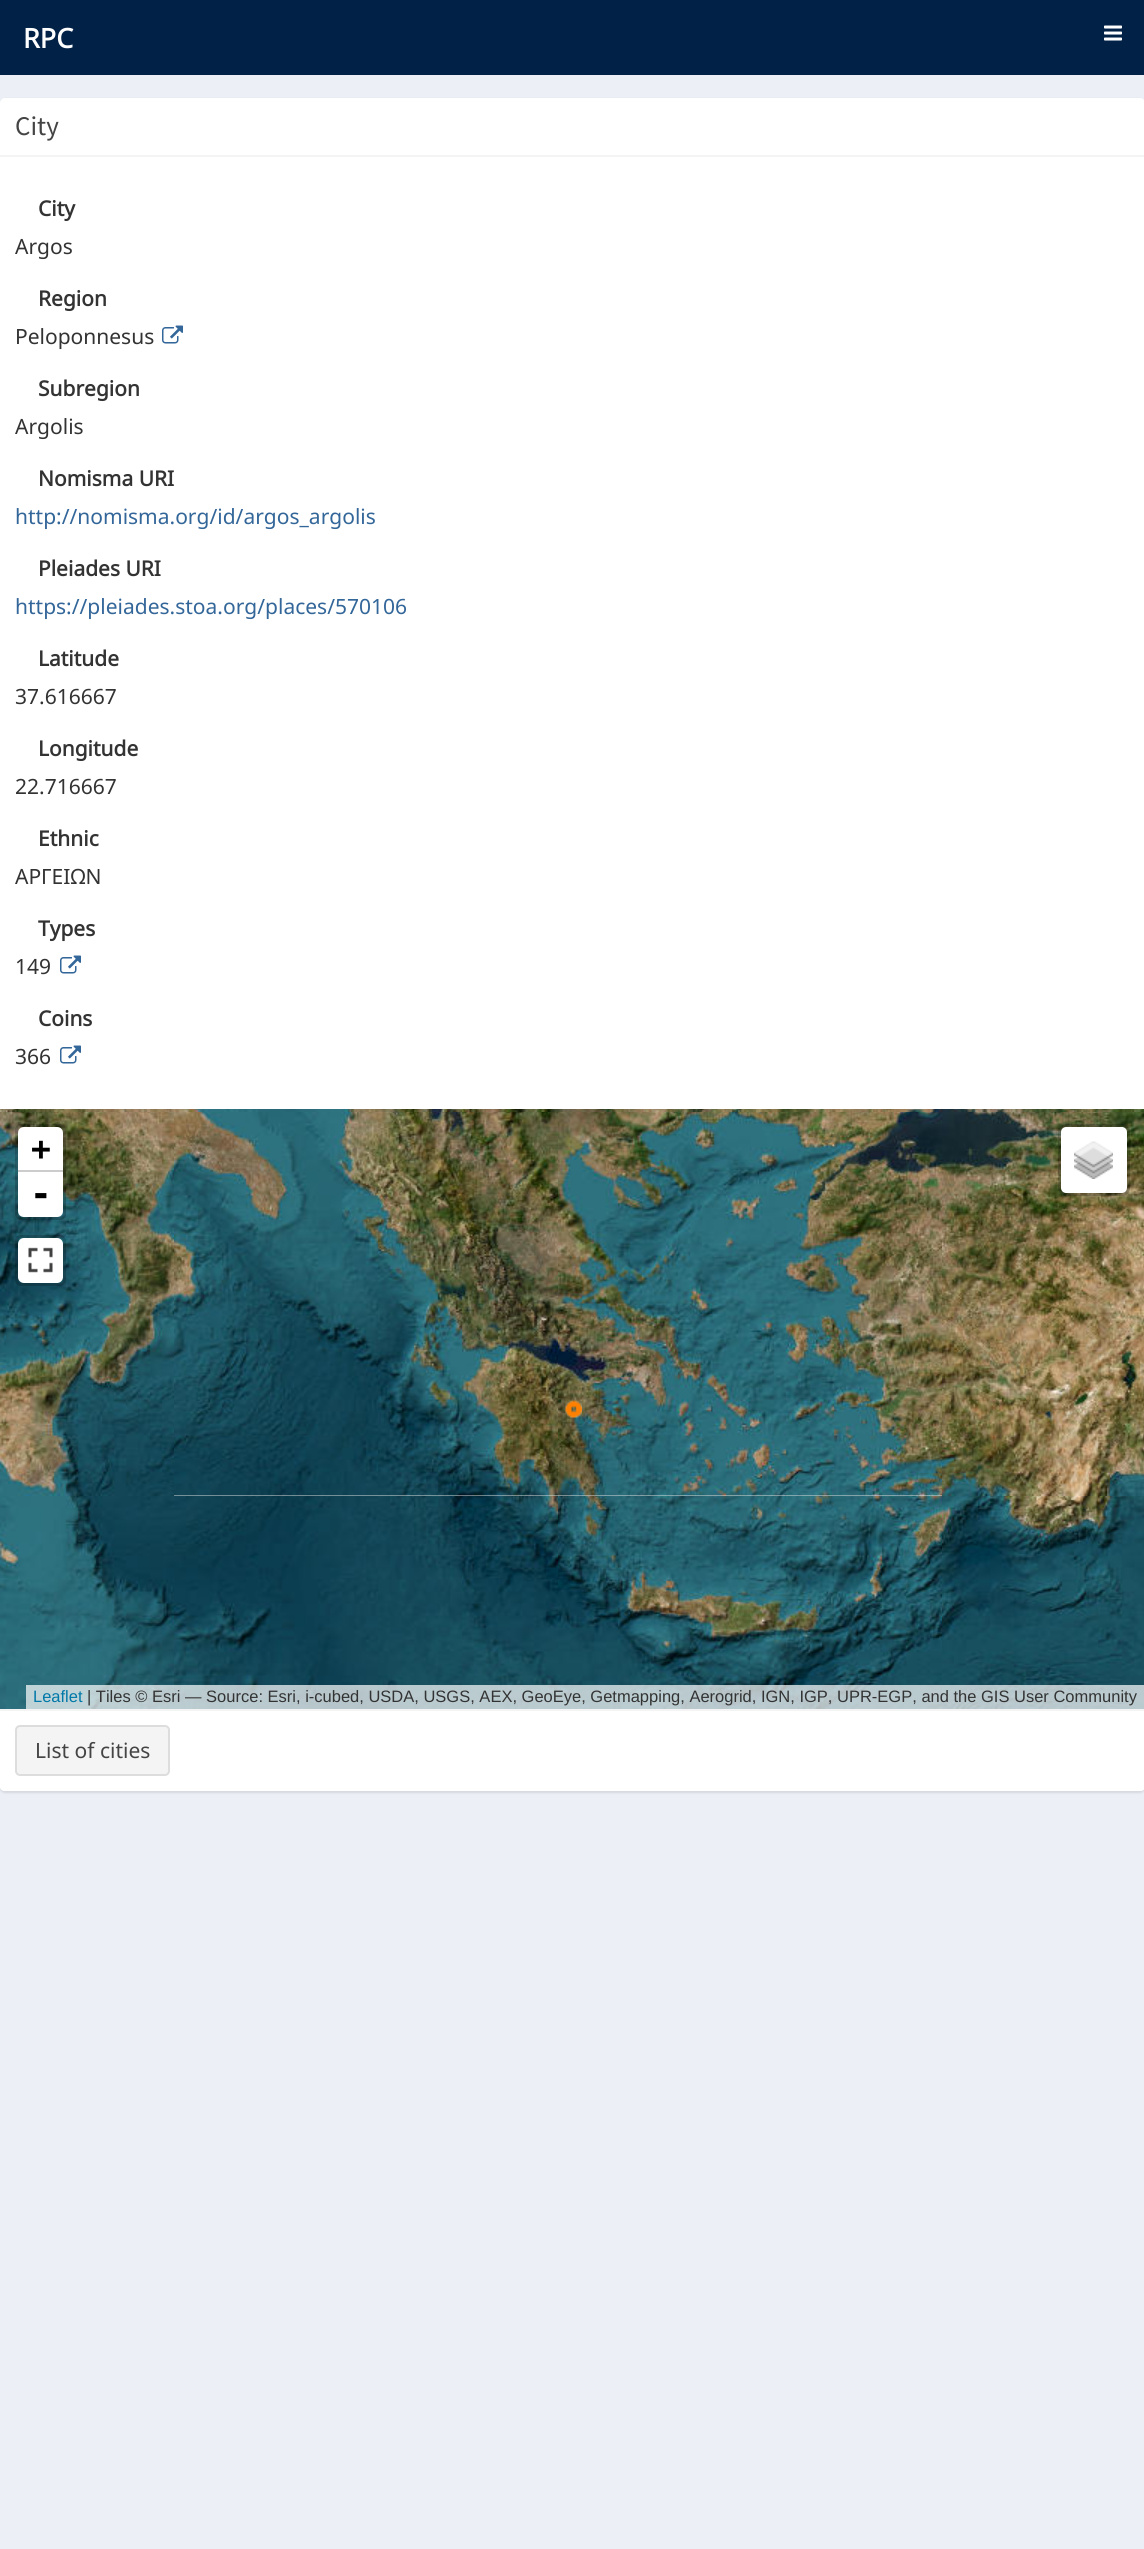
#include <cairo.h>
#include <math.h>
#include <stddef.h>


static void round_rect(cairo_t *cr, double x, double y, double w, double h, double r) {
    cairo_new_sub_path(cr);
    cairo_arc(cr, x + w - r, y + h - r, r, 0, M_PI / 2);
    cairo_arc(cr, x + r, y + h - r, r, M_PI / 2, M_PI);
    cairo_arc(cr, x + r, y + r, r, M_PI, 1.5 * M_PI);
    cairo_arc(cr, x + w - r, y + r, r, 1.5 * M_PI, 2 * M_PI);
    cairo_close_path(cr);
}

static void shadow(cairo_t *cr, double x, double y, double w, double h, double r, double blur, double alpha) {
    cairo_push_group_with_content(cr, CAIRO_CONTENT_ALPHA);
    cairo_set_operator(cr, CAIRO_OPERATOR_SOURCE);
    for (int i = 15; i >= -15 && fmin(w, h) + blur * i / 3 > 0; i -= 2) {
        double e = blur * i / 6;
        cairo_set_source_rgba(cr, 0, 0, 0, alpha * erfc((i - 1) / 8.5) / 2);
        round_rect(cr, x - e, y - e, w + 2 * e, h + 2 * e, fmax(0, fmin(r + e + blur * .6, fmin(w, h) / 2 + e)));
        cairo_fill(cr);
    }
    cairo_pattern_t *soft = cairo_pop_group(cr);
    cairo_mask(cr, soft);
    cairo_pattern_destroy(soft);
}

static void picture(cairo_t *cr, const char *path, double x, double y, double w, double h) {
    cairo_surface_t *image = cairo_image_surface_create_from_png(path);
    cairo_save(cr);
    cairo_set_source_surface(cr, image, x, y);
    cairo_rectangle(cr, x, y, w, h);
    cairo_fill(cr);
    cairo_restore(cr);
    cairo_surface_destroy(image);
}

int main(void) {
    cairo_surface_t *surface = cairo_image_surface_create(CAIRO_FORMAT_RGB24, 1144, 2549);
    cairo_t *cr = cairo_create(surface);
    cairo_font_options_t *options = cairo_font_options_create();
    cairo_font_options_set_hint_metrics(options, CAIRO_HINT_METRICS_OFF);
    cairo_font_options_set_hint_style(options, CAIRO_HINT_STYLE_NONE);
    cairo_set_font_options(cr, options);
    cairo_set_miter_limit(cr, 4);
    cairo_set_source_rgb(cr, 0.925, 0.941, 0.961);
    cairo_paint(cr);
    cairo_set_source_rgb(cr, 0.004, 0.129, 0.278);
    cairo_rectangle(cr, 0, 0, 1144, 75);
    cairo_fill(cr);
    cairo_select_font_face(cr, "Noto Sans", CAIRO_FONT_SLANT_NORMAL, CAIRO_FONT_WEIGHT_BOLD);
    cairo_set_font_size(cr, 27);
    cairo_set_source_rgb(cr, 1, 1, 1);
    cairo_move_to(cr, 23, 48);
    cairo_show_text(cr, "RPC");
    picture(cr, "img1.png", 1104, 25, 18, 16);
    cairo_set_source_rgb(cr, 0, 0, 0);
    shadow(cr, 0, 99, 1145, 1694, 5, 1, 0.1);
    cairo_set_source_rgb(cr, 1, 1, 1);
    round_rect(cr, 0, 98, 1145, 1693, 5);
    cairo_fill(cr);
    cairo_set_source_rgb(cr, 0.957, 0.957, 0.957);
    cairo_rectangle(cr, 0, 155, 1144, 2);
    cairo_fill(cr);
    cairo_select_font_face(cr, "Source Sans Pro", CAIRO_FONT_SLANT_NORMAL, CAIRO_FONT_WEIGHT_NORMAL);
    cairo_set_source_rgb(cr, 0.267, 0.267, 0.267);
    cairo_move_to(cr, 15, 135);
    cairo_show_text(cr, "City");
    cairo_select_font_face(cr, "Noto Sans", CAIRO_FONT_SLANT_NORMAL, CAIRO_FONT_WEIGHT_BOLD);
    cairo_set_font_size(cr, 21);
    cairo_set_source_rgb(cr, 0.2, 0.2, 0.2);
    cairo_move_to(cr, 38, 216);
    cairo_show_text(cr, "City");
    cairo_select_font_face(cr, "Noto Sans", CAIRO_FONT_SLANT_NORMAL, CAIRO_FONT_WEIGHT_NORMAL);
    cairo_move_to(cr, 15, 254);
    cairo_show_text(cr, "Argos");
    cairo_select_font_face(cr, "Noto Sans", CAIRO_FONT_SLANT_NORMAL, CAIRO_FONT_WEIGHT_BOLD);
    cairo_move_to(cr, 38, 306);
    cairo_show_text(cr, "Region");
    cairo_select_font_face(cr, "Noto Sans", CAIRO_FONT_SLANT_NORMAL, CAIRO_FONT_WEIGHT_NORMAL);
    cairo_move_to(cr, 15, 344);
    cairo_show_text(cr, "Peloponnesus");
    picture(cr, "img2.png", 162, 325, 21, 19);
    cairo_select_font_face(cr, "Noto Sans", CAIRO_FONT_SLANT_NORMAL, CAIRO_FONT_WEIGHT_BOLD);
    cairo_move_to(cr, 38, 396);
    cairo_show_text(cr, "Subregion");
    cairo_select_font_face(cr, "Noto Sans", CAIRO_FONT_SLANT_NORMAL, CAIRO_FONT_WEIGHT_NORMAL);
    cairo_move_to(cr, 15, 434);
    cairo_show_text(cr, "Argolis");
    cairo_select_font_face(cr, "Noto Sans", CAIRO_FONT_SLANT_NORMAL, CAIRO_FONT_WEIGHT_BOLD);
    cairo_move_to(cr, 38, 486);
    cairo_show_text(cr, "Nomisma URI");
    cairo_select_font_face(cr, "Noto Sans", CAIRO_FONT_SLANT_NORMAL, CAIRO_FONT_WEIGHT_NORMAL);
    cairo_set_source_rgb(cr, 0.2, 0.4, 0.6);
    cairo_move_to(cr, 15, 524);
    cairo_show_text(cr, "http://nomisma.org/id/argos_argolis");
    cairo_select_font_face(cr, "Noto Sans", CAIRO_FONT_SLANT_NORMAL, CAIRO_FONT_WEIGHT_BOLD);
    cairo_set_source_rgb(cr, 0.2, 0.2, 0.2);
    cairo_move_to(cr, 38, 576);
    cairo_show_text(cr, "Pleiades URI");
    cairo_select_font_face(cr, "Noto Sans", CAIRO_FONT_SLANT_NORMAL, CAIRO_FONT_WEIGHT_NORMAL);
    cairo_set_source_rgb(cr, 0.2, 0.4, 0.6);
    cairo_move_to(cr, 15, 614);
    cairo_show_text(cr, "https://pleiades.stoa.org/places/570106");
    cairo_select_font_face(cr, "Noto Sans", CAIRO_FONT_SLANT_NORMAL, CAIRO_FONT_WEIGHT_BOLD);
    cairo_set_source_rgb(cr, 0.2, 0.2, 0.2);
    cairo_move_to(cr, 38, 666);
    cairo_show_text(cr, "Latitude");
    cairo_select_font_face(cr, "Noto Sans", CAIRO_FONT_SLANT_NORMAL, CAIRO_FONT_WEIGHT_NORMAL);
    cairo_move_to(cr, 15, 704);
    cairo_show_text(cr, "37.616667");
    cairo_select_font_face(cr, "Noto Sans", CAIRO_FONT_SLANT_NORMAL, CAIRO_FONT_WEIGHT_BOLD);
    cairo_move_to(cr, 38, 756);
    cairo_show_text(cr, "Longitude");
    cairo_select_font_face(cr, "Noto Sans", CAIRO_FONT_SLANT_NORMAL, CAIRO_FONT_WEIGHT_NORMAL);
    cairo_move_to(cr, 15, 794);
    cairo_show_text(cr, "22.716667");
    cairo_select_font_face(cr, "Noto Sans", CAIRO_FONT_SLANT_NORMAL, CAIRO_FONT_WEIGHT_BOLD);
    cairo_move_to(cr, 38, 846);
    cairo_show_text(cr, "Ethnic");
    cairo_select_font_face(cr, "Noto Sans", CAIRO_FONT_SLANT_NORMAL, CAIRO_FONT_WEIGHT_NORMAL);
    cairo_move_to(cr, 15, 884);
    cairo_show_text(cr, "ΑΡΓΕΙΩΝ");
    cairo_select_font_face(cr, "Noto Sans", CAIRO_FONT_SLANT_NORMAL, CAIRO_FONT_WEIGHT_BOLD);
    cairo_move_to(cr, 38, 936);
    cairo_show_text(cr, "Types");
    cairo_select_font_face(cr, "Noto Sans", CAIRO_FONT_SLANT_NORMAL, CAIRO_FONT_WEIGHT_NORMAL);
    cairo_move_to(cr, 15, 974);
    cairo_show_text(cr, "149");
    picture(cr, "img2.png", 60, 955, 21, 19);
    cairo_select_font_face(cr, "Noto Sans", CAIRO_FONT_SLANT_NORMAL, CAIRO_FONT_WEIGHT_BOLD);
    cairo_move_to(cr, 38, 1026);
    cairo_show_text(cr, "Coins");
    cairo_select_font_face(cr, "Noto Sans", CAIRO_FONT_SLANT_NORMAL, CAIRO_FONT_WEIGHT_NORMAL);
    cairo_move_to(cr, 15, 1064);
    cairo_show_text(cr, "366");
    picture(cr, "img2.png", 60, 1045, 21, 19);
    cairo_set_source_rgb(cr, 0.867, 0.867, 0.867);
    cairo_rectangle(cr, 174, 1495, 768, 1);
    cairo_fill(cr);
    picture(cr, "img3.png", 0, 1109, 174, 3);
    picture(cr, "img4.png", 174, 1109, 384, 3);
    picture(cr, "img5.png", 558, 1109, 384, 3);
    picture(cr, "img6.png", 942, 1109, 202, 3);
    picture(cr, "img7.png", 0, 1112, 174, 384);
    picture(cr, "img8.png", 174, 1112, 384, 384);
    picture(cr, "img9.png", 558, 1112, 384, 384);
    picture(cr, "img10.png", 942, 1112, 202, 384);
    picture(cr, "img11.png", 0, 1496, 174, 213);
    picture(cr, "img12.png", 174, 1496, 384, 213);
    picture(cr, "img13.png", 558, 1496, 384, 213);
    picture(cr, "img14.png", 942, 1496, 202, 213);
    picture(cr, "img15.png", 565, 1400, 17, 18);
    round_rect(cr, 16.5, 1125.5, 48, 93, 4.5);
    cairo_set_source_rgba(cr, 0, 0, 0, 0.2);
    cairo_set_line_width(cr, 3);
    cairo_stroke(cr);
    cairo_set_source_rgb(cr, 1, 1, 1);
    cairo_new_path(cr);
    cairo_move_to(cr, 24, 1127);
    cairo_line_to(cr, 57, 1127);
    cairo_curve_to(cr, 60.5, 1127, 63, 1129.5, 63, 1133);
    cairo_line_to(cr, 63, 1172);
    cairo_line_to(cr, 18, 1172);
    cairo_line_to(cr, 18, 1133);
    cairo_curve_to(cr, 18, 1129.5, 20.5, 1127, 24, 1127);
    cairo_close_path(cr);
    cairo_fill(cr);
    cairo_set_source_rgb(cr, 0.8, 0.8, 0.8);
    cairo_rectangle(cr, 18, 1170, 45, 2);
    cairo_fill(cr);
    cairo_select_font_face(cr, "DejaVu Sans Mono", CAIRO_FONT_SLANT_NORMAL, CAIRO_FONT_WEIGHT_BOLD);
    cairo_set_font_size(cr, 33);
    cairo_set_source_rgb(cr, 0, 0, 0);
    cairo_move_to(cr, 31, 1160);
    cairo_show_text(cr, "+");
    cairo_set_source_rgb(cr, 1, 1, 1);
    cairo_new_path(cr);
    cairo_move_to(cr, 18, 1172);
    cairo_line_to(cr, 63, 1172);
    cairo_line_to(cr, 63, 1211);
    cairo_curve_to(cr, 63, 1214.5, 60.5, 1217, 57, 1217);
    cairo_line_to(cr, 24, 1217);
    cairo_curve_to(cr, 20.5, 1217, 18, 1214.5, 18, 1211);
    cairo_close_path(cr);
    cairo_fill(cr);
    cairo_set_font_size(cr, 36);
    cairo_set_source_rgb(cr, 0, 0, 0);
    cairo_move_to(cr, 30, 1206);
    cairo_show_text(cr, "-");
    round_rect(cr, 16.5, 1236.5, 48, 48, 4.5);
    cairo_set_source_rgba(cr, 0, 0, 0, 0.2);
    cairo_stroke(cr);
    cairo_set_source_rgb(cr, 1, 1, 1);
    round_rect(cr, 18, 1238, 45, 45, 6);
    cairo_fill(cr);
    picture(cr, "img16.png", 28, 1247, 25, 26);
    round_rect(cr, 1061, 1127, 66, 66, 5);
    cairo_fill(cr);
    round_rect(cr, 1059.5, 1125.5, 69, 69, 6.5);
    cairo_set_source_rgba(cr, 0, 0, 0, 0.2);
    cairo_stroke(cr);
    picture(cr, "img17.png", 1074, 1141, 39, 38);
    cairo_set_source_rgba(cr, 1, 1, 1, 0.7);
    cairo_rectangle(cr, 26, 1685, 1118, 24);
    cairo_fill(cr);
    cairo_select_font_face(cr, "Liberation Sans", CAIRO_FONT_SLANT_NORMAL, CAIRO_FONT_WEIGHT_NORMAL);
    cairo_set_font_size(cr, 16.5);
    cairo_set_source_rgb(cr, 0, 0.471, 0.659);
    cairo_move_to(cr, 33, 1702);
    cairo_show_text(cr, "Leaflet");
    cairo_set_source_rgb(cr, 0.2, 0.2, 0.2);
    cairo_move_to(cr, 87, 1702);
    cairo_show_text(cr, "| Tiles © Esri — Source: Esri, i-cubed, USDA, USGS, AEX, GeoEye, Getmapping, Aerogrid, IGN, IGP, UPR-EGP, and the GIS User Community");
    cairo_set_source_rgb(cr, 1, 1, 1);
    cairo_new_path(cr);
    cairo_move_to(cr, 0, 1709);
    cairo_line_to(cr, 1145, 1709);
    cairo_line_to(cr, 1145, 1786);
    cairo_curve_to(cr, 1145, 1789, 1143, 1791, 1140, 1791);
    cairo_line_to(cr, 5, 1791);
    cairo_curve_to(cr, 2, 1791, 0, 1789, 0, 1786);
    cairo_close_path(cr);
    cairo_fill(cr);
    cairo_set_source_rgb(cr, 0.957, 0.957, 0.957);
    cairo_rectangle(cr, 0, 1709, 1144, 2);
    cairo_fill(cr);
    round_rect(cr, 16, 1726, 153, 49, 4);
    cairo_fill_preserve(cr);
    cairo_set_source_rgb(cr, 0.867, 0.867, 0.867);
    cairo_set_line_width(cr, 2);
    cairo_stroke(cr);
    cairo_select_font_face(cr, "Noto Sans", CAIRO_FONT_SLANT_NORMAL, CAIRO_FONT_WEIGHT_NORMAL);
    cairo_set_font_size(cr, 21);
    cairo_set_source_rgb(cr, 0.267, 0.267, 0.267);
    cairo_move_to(cr, 35, 1758);
    cairo_show_text(cr, "List of cities");
    cairo_surface_write_to_png(surface, "page.png");
    cairo_font_options_destroy(options);
    cairo_destroy(cr);
    cairo_surface_destroy(surface);
    return 0;
}
